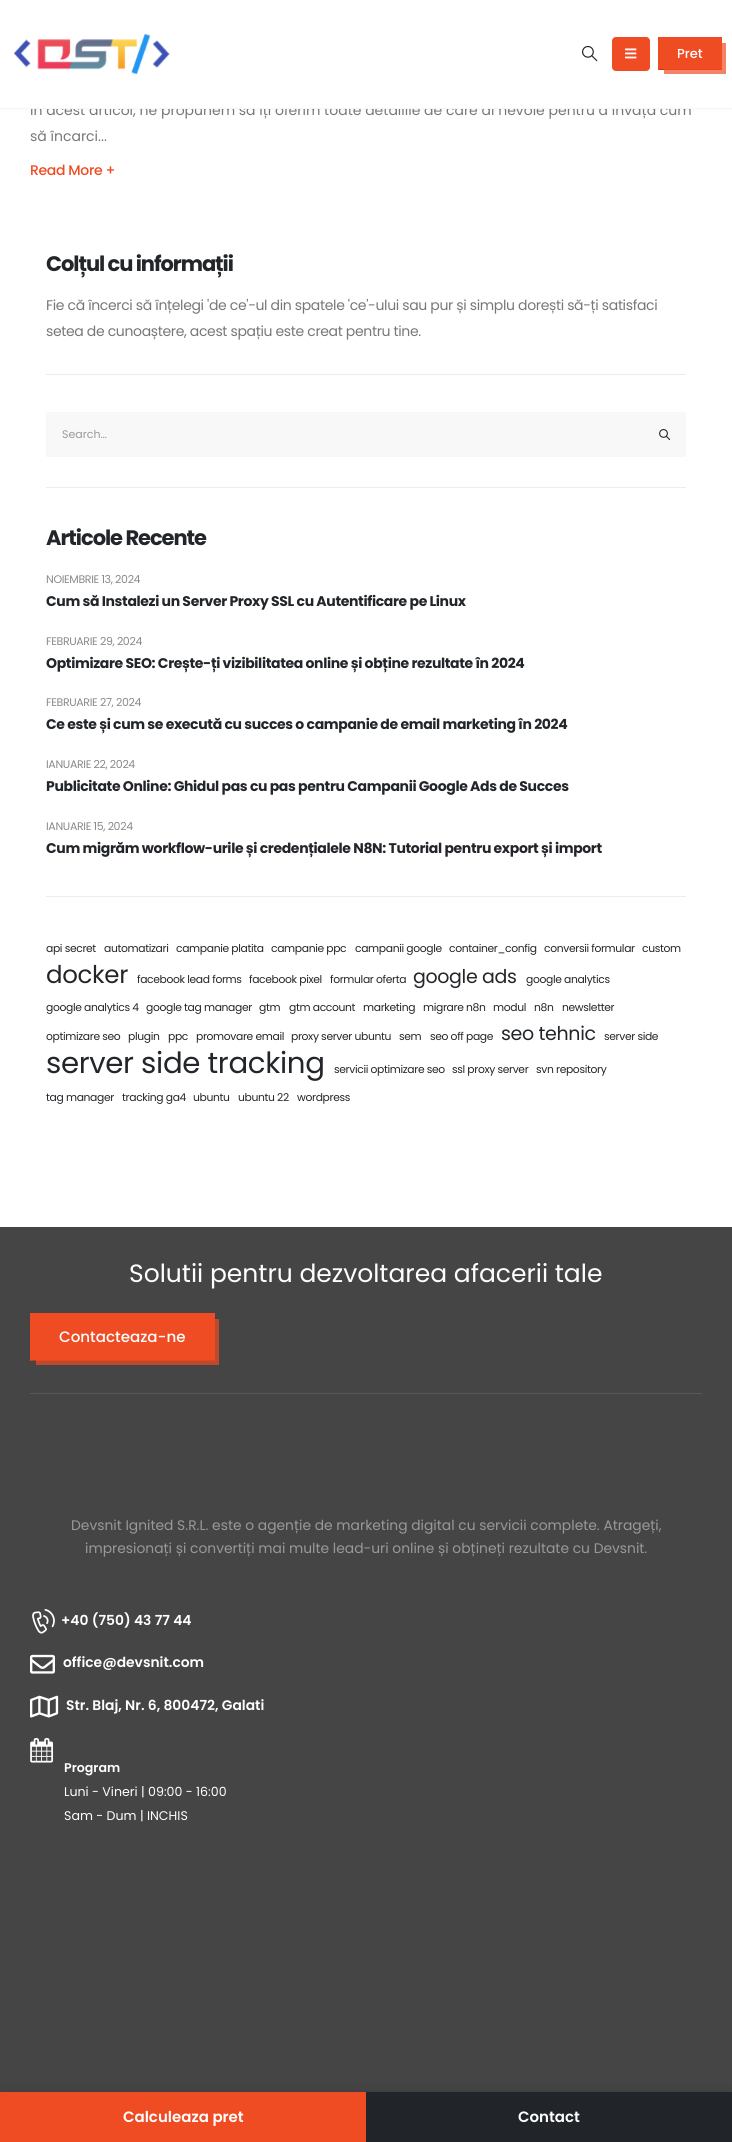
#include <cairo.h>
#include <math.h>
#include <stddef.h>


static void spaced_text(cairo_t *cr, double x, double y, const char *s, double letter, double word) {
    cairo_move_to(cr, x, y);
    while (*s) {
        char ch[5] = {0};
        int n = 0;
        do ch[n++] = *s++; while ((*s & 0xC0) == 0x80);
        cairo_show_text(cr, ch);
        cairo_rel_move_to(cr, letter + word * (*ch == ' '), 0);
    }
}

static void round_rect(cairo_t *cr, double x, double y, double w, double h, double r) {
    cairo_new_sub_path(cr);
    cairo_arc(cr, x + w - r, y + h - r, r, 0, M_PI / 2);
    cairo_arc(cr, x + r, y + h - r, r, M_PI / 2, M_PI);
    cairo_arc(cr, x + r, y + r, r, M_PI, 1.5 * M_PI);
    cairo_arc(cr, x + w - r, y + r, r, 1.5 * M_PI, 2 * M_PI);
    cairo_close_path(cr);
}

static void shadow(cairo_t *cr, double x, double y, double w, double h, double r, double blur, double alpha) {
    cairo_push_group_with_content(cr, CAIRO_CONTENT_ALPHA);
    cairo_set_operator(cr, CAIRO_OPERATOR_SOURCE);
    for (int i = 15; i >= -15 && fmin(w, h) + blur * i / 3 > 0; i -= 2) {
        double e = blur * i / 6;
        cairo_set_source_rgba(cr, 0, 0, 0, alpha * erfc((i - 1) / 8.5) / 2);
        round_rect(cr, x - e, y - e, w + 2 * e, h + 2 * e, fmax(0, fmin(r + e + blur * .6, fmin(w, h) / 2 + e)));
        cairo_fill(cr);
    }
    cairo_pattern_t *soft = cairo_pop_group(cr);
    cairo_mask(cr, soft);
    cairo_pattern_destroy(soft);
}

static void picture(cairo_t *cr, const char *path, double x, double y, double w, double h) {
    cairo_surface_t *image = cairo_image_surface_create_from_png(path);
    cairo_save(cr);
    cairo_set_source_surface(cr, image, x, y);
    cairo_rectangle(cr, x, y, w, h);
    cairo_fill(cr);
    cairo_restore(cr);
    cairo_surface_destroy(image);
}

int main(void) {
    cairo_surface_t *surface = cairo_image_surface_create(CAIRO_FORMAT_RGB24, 732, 2142);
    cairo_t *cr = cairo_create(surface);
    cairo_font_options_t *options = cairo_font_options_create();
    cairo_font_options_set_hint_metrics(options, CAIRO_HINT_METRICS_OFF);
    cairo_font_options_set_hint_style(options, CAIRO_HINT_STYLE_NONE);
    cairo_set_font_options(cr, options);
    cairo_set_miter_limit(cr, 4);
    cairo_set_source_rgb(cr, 1, 1, 1);
    cairo_paint(cr);
    cairo_set_source_rgb(cr, 0.918, 0.918, 0.918);
    shadow(cr, 0, 0, 732, 109, 0, 1.5, 0.5);
    cairo_select_font_face(cr, "Poppins", CAIRO_FONT_SLANT_NORMAL, CAIRO_FONT_WEIGHT_NORMAL);
    cairo_set_font_size(cr, 14);
    cairo_set_source_rgb(cr, 0.467, 0.467, 0.467);
    cairo_move_to(cr, 30, 115);
    cairo_show_text(cr, "În acest articol, ne propunem să îți oferim toate detaliile de care ai nevoie pentru a învăța cum");
    cairo_set_source_rgb(cr, 1, 1, 1);
    cairo_rectangle(cr, 0, 0, 732, 108);
    cairo_fill(cr);
    cairo_set_source_rgb(cr, 0.961, 0.51, 0.396);
    cairo_rectangle(cr, 664, 43, 62, 31);
    cairo_fill(cr);
    cairo_set_source_rgb(cr, 0.961, 0.961, 0.961);
    cairo_rectangle(cr, 0, 108, 732, 1);
    cairo_fill(cr);
    picture(cr, "img1.png", 13, 33, 157, 41);
    picture(cr, "img2.png", 582, 45, 16, 17);
    cairo_set_source_rgb(cr, 0.941, 0.298, 0.137);
    round_rect(cr, 612, 37, 38, 34, 4);
    cairo_fill(cr);
    picture(cr, "img3.png", 625, 48, 12, 11);
    cairo_rectangle(cr, 659, 37, 63, 32);
    cairo_fill(cr);
    cairo_set_source_rgb(cr, 0.824, 0.212, 0.059);
    cairo_rectangle(cr, 658, 69, 6, 1);
    cairo_fill(cr);
    cairo_set_source_rgb(cr, 0.906, 0.271, 0.114);
    cairo_rectangle(cr, 664, 69, 58, 1);
    cairo_fill(cr);
    cairo_set_source_rgb(cr, 0.941, 0.298, 0.137);
    cairo_rectangle(cr, 658, 37, 1, 33);
    cairo_fill(cr);
    cairo_select_font_face(cr, "Poppins Medium", CAIRO_FONT_SLANT_NORMAL, CAIRO_FONT_WEIGHT_NORMAL);
    cairo_set_font_size(cr, 13);
    cairo_set_source_rgb(cr, 1, 1, 1);
    cairo_move_to(cr, 677, 58);
    cairo_show_text(cr, "Pret");
    cairo_select_font_face(cr, "Poppins", CAIRO_FONT_SLANT_NORMAL, CAIRO_FONT_WEIGHT_NORMAL);
    cairo_set_font_size(cr, 14);
    cairo_set_source_rgb(cr, 0.467, 0.467, 0.467);
    cairo_move_to(cr, 30, 141);
    cairo_show_text(cr, "să încarci...");
    cairo_select_font_face(cr, "Poppins Medium", CAIRO_FONT_SLANT_NORMAL, CAIRO_FONT_WEIGHT_NORMAL);
    cairo_set_source_rgb(cr, 0.941, 0.298, 0.137);
    spaced_text(cr, 30, 175, "Read More +", -0.35, 0);
    cairo_select_font_face(cr, "Poppins", CAIRO_FONT_SLANT_NORMAL, CAIRO_FONT_WEIGHT_BOLD);
    cairo_set_font_size(cr, 21);
    cairo_set_source_rgb(cr, 0.133, 0.145, 0.161);
    spaced_text(cr, 46, 271, "Colțul cu informații", -1.05, 0);
    cairo_select_font_face(cr, "Poppins", CAIRO_FONT_SLANT_NORMAL, CAIRO_FONT_WEIGHT_NORMAL);
    cairo_set_font_size(cr, 14);
    cairo_set_source_rgb(cr, 0.467, 0.467, 0.467);
    spaced_text(cr, 46, 310, "Fie că încerci să înțelegi 'de ce'-ul din spatele 'ce'-ului sau pur și simplu dorești să-ți satisfaci", -0.35, 0);
    spaced_text(cr, 46, 336, "setea de cunoaștere, acest spațiu este creat pentru tine.", -0.35, 0);
    cairo_set_source_rgb(cr, 0.922, 0.922, 0.922);
    cairo_rectangle(cr, 46, 374, 640, 1);
    cairo_fill(cr);
    cairo_set_source_rgb(cr, 0.969, 0.969, 0.969);
    cairo_rectangle(cr, 46, 412, 640, 45);
    cairo_fill(cr);
    cairo_set_font_size(cr, 11);
    cairo_set_source_rgb(cr, 0.6, 0.6, 0.6);
    cairo_move_to(cr, 62, 438);
    cairo_show_text(cr, "Search…");
    picture(cr, "img4.png", 659, 429, 12, 11);
    cairo_set_source_rgb(cr, 0.922, 0.922, 0.922);
    cairo_rectangle(cr, 46, 487, 640, 1);
    cairo_fill(cr);
    cairo_select_font_face(cr, "Poppins", CAIRO_FONT_SLANT_NORMAL, CAIRO_FONT_WEIGHT_BOLD);
    cairo_set_font_size(cr, 21);
    cairo_set_source_rgb(cr, 0.133, 0.145, 0.161);
    spaced_text(cr, 46, 545, "Articole Recente", -1.05, 0);
    cairo_select_font_face(cr, "Poppins", CAIRO_FONT_SLANT_NORMAL, CAIRO_FONT_WEIGHT_NORMAL);
    cairo_set_font_size(cr, 11);
    cairo_set_source_rgb(cr, 0.537, 0.537, 0.537);
    spaced_text(cr, 46, 583, "NOIEMBRIE 13, 2024", -0.35, 0);
    cairo_select_font_face(cr, "Poppins", CAIRO_FONT_SLANT_NORMAL, CAIRO_FONT_WEIGHT_BOLD);
    cairo_set_font_size(cr, 14);
    cairo_set_source_rgb(cr, 0.133, 0.145, 0.161);
    spaced_text(cr, 46, 606, "Cum să Instalezi un Server Proxy SSL cu Autentificare pe Linux", -0.35, 0);
    cairo_select_font_face(cr, "Poppins", CAIRO_FONT_SLANT_NORMAL, CAIRO_FONT_WEIGHT_NORMAL);
    cairo_set_font_size(cr, 11);
    cairo_set_source_rgb(cr, 0.537, 0.537, 0.537);
    spaced_text(cr, 46, 645, "FEBRUARIE 29, 2024", -0.35, 0);
    cairo_select_font_face(cr, "Poppins", CAIRO_FONT_SLANT_NORMAL, CAIRO_FONT_WEIGHT_BOLD);
    cairo_set_font_size(cr, 14);
    cairo_set_source_rgb(cr, 0.133, 0.145, 0.161);
    spaced_text(cr, 46, 668, "Optimizare SEO: Crește-ți vizibilitatea online și obține rezultate în 2024", -0.35, 0);
    cairo_select_font_face(cr, "Poppins", CAIRO_FONT_SLANT_NORMAL, CAIRO_FONT_WEIGHT_NORMAL);
    cairo_set_font_size(cr, 11);
    cairo_set_source_rgb(cr, 0.537, 0.537, 0.537);
    spaced_text(cr, 46, 706, "FEBRUARIE 27, 2024", -0.35, 0);
    cairo_select_font_face(cr, "Poppins", CAIRO_FONT_SLANT_NORMAL, CAIRO_FONT_WEIGHT_BOLD);
    cairo_set_font_size(cr, 14);
    cairo_set_source_rgb(cr, 0.133, 0.145, 0.161);
    spaced_text(cr, 46, 729, "Ce este și cum se execută cu succes o campanie de email marketing în 2024", -0.35, 0);
    cairo_select_font_face(cr, "Poppins", CAIRO_FONT_SLANT_NORMAL, CAIRO_FONT_WEIGHT_NORMAL);
    cairo_set_font_size(cr, 11);
    cairo_set_source_rgb(cr, 0.537, 0.537, 0.537);
    spaced_text(cr, 46, 768, "IANUARIE 22, 2024", -0.35, 0);
    cairo_select_font_face(cr, "Poppins", CAIRO_FONT_SLANT_NORMAL, CAIRO_FONT_WEIGHT_BOLD);
    cairo_set_font_size(cr, 14);
    cairo_set_source_rgb(cr, 0.133, 0.145, 0.161);
    spaced_text(cr, 46, 791, "Publicitate Online: Ghidul pas cu pas pentru Campanii Google Ads de Succes", -0.35, 0);
    cairo_select_font_face(cr, "Poppins", CAIRO_FONT_SLANT_NORMAL, CAIRO_FONT_WEIGHT_NORMAL);
    cairo_set_font_size(cr, 11);
    cairo_set_source_rgb(cr, 0.537, 0.537, 0.537);
    spaced_text(cr, 46, 830, "IANUARIE 15, 2024", -0.35, 0);
    cairo_select_font_face(cr, "Poppins", CAIRO_FONT_SLANT_NORMAL, CAIRO_FONT_WEIGHT_BOLD);
    cairo_set_font_size(cr, 14);
    cairo_set_source_rgb(cr, 0.133, 0.145, 0.161);
    spaced_text(cr, 46, 853, "Cum migrăm workflow-urile și credențialele N8N: Tutorial pentru export și import", -0.35, 0);
    cairo_set_source_rgb(cr, 0.922, 0.922, 0.922);
    cairo_rectangle(cr, 46, 896, 640, 1);
    cairo_fill(cr);
    cairo_select_font_face(cr, "Poppins", CAIRO_FONT_SLANT_NORMAL, CAIRO_FONT_WEIGHT_NORMAL);
    cairo_set_font_size(cr, 10.75);
    cairo_set_source_rgb(cr, 0.133, 0.145, 0.161);
    spaced_text(cr, 46, 952, "api secret", -0.35, 0);
    spaced_text(cr, 104, 952, "automatizari", -0.35, 0);
    spaced_text(cr, 176, 952, "campanie platita", -0.35, 0);
    spaced_text(cr, 271, 952, "campanie ppc", -0.35, 0);
    spaced_text(cr, 355, 952, "campanii google", -0.35, 0);
    spaced_text(cr, 449, 952, "container_config", -0.35, 0);
    spaced_text(cr, 544, 952, "conversii formular", -0.35, 0);
    spaced_text(cr, 642, 952, "custom", -0.35, 0);
    cairo_set_font_size(cr, 24.5);
    spaced_text(cr, 46, 983, "docker", -0.35, 0);
    cairo_set_font_size(cr, 10.75);
    spaced_text(cr, 137, 983, "facebook lead forms", -0.35, 0);
    spaced_text(cr, 249, 983, "facebook pixel", -0.35, 0);
    spaced_text(cr, 330, 983, "formular oferta", -0.35, 0);
    cairo_set_font_size(cr, 19);
    spaced_text(cr, 413, 983, "google ads", -0.35, 0);
    cairo_set_font_size(cr, 10.75);
    spaced_text(cr, 526, 983, "google analytics", -0.35, 0);
    spaced_text(cr, 46, 1011, "google analytics 4", -0.35, 0);
    spaced_text(cr, 146, 1011, "google tag manager", -0.35, 0);
    spaced_text(cr, 259, 1011, "gtm", -0.35, 0);
    spaced_text(cr, 289, 1011, "gtm account", -0.35, 0);
    spaced_text(cr, 363, 1011, "marketing", -0.35, 0);
    spaced_text(cr, 423, 1011, "migrare n8n", -0.35, 0);
    spaced_text(cr, 493, 1011, "modul", -0.35, 0);
    spaced_text(cr, 534, 1011, "n8n", -0.35, 0);
    spaced_text(cr, 562, 1011, "newsletter", -0.35, 0);
    spaced_text(cr, 46, 1040, "optimizare seo", -0.35, 0);
    spaced_text(cr, 128, 1040, "plugin", -0.35, 0);
    spaced_text(cr, 168, 1040, "ppc", -0.35, 0);
    spaced_text(cr, 196, 1040, "promovare email", -0.35, 0);
    spaced_text(cr, 291, 1040, "proxy server ubuntu", -0.35, 0);
    spaced_text(cr, 399, 1040, "sem", -0.35, 0);
    spaced_text(cr, 430, 1040, "seo off page", -0.35, 0);
    cairo_set_font_size(cr, 19);
    spaced_text(cr, 501, 1040, "seo tehnic", -0.35, 0);
    cairo_set_font_size(cr, 10.75);
    spaced_text(cr, 604, 1040, "server side", -0.35, 0);
    cairo_set_font_size(cr, 29.25);
    spaced_text(cr, 46, 1073, "server side tracking", -0.35, 0);
    cairo_set_font_size(cr, 10.75);
    spaced_text(cr, 334, 1073, "servicii optimizare seo", -0.35, 0);
    spaced_text(cr, 452, 1073, "ssl proxy server", -0.35, 0);
    spaced_text(cr, 536, 1073, "svn repository", -0.35, 0);
    spaced_text(cr, 46, 1101, "tag manager", -0.35, 0);
    spaced_text(cr, 122, 1101, "tracking ga4", -0.35, 0);
    spaced_text(cr, 193, 1101, "ubuntu", -0.35, 0);
    spaced_text(cr, 238, 1101, "ubuntu 22", -0.35, 0);
    spaced_text(cr, 297, 1101, "wordpress", -0.35, 0);
    cairo_set_source_rgb(cr, 0.271, 0.271, 0.271);
    cairo_rectangle(cr, 0, 1227, 732, 865);
    cairo_fill(cr);
    cairo_set_source_rgb(cr, 0.741, 0.29, 0.176);
    cairo_rectangle(cr, 36, 1319, 183, 46);
    cairo_fill(cr);
    cairo_set_font_size(cr, 25);
    cairo_set_source_rgb(cr, 1, 1, 1);
    cairo_move_to(cr, 129, 1282);
    cairo_show_text(cr, "Solutii pentru dezvoltarea afacerii tale");
    cairo_set_source_rgb(cr, 0.941, 0.298, 0.137);
    cairo_rectangle(cr, 31, 1313, 184, 47);
    cairo_fill(cr);
    cairo_set_source_rgb(cr, 0.824, 0.212, 0.059);
    cairo_rectangle(cr, 30, 1360, 6, 1);
    cairo_fill(cr);
    cairo_set_source_rgb(cr, 0.906, 0.271, 0.114);
    cairo_rectangle(cr, 36, 1360, 179, 1);
    cairo_fill(cr);
    cairo_set_source_rgb(cr, 0.941, 0.298, 0.137);
    cairo_rectangle(cr, 30, 1313, 1, 48);
    cairo_fill(cr);
    cairo_select_font_face(cr, "Poppins Medium", CAIRO_FONT_SLANT_NORMAL, CAIRO_FONT_WEIGHT_NORMAL);
    cairo_set_font_size(cr, 15.1);
    cairo_set_source_rgb(cr, 1, 1, 1);
    cairo_move_to(cr, 59, 1342);
    cairo_show_text(cr, "Contacteaza-ne");
    cairo_set_source_rgb(cr, 0.345, 0.345, 0.345);
    cairo_rectangle(cr, 30, 1393, 672, 1);
    cairo_fill(cr);
    cairo_select_font_face(cr, "Poppins", CAIRO_FONT_SLANT_NORMAL, CAIRO_FONT_WEIGHT_NORMAL);
    cairo_set_font_size(cr, 13.85);
    cairo_set_source_rgb(cr, 0.6, 0.6, 0.6);
    cairo_move_to(cr, 71, 1530);
    cairo_show_text(cr, "Devsnit Ignited S.R.L. este o agenție de marketing digital cu servicii complete. Atrageți,");
    cairo_move_to(cr, 85, 1553);
    cairo_show_text(cr, "impresionați și convertiți mai multe lead-uri online și obțineți rezultate cu Devsnit.");
    picture(cr, "img5.png", 32, 1609, 23, 25);
    cairo_select_font_face(cr, "Poppins SemiBold", CAIRO_FONT_SLANT_NORMAL, CAIRO_FONT_WEIGHT_NORMAL);
    cairo_set_source_rgb(cr, 1, 1, 1);
    cairo_move_to(cr, 61, 1625);
    cairo_show_text(cr, "+40 (750) 43 77 44");
    picture(cr, "img6.png", 30, 1654, 25, 20);
    cairo_move_to(cr, 63, 1667);
    cairo_show_text(cr, "office@devsnit.com");
    picture(cr, "img7.png", 30, 1695, 29, 23);
    cairo_move_to(cr, 66, 1710);
    cairo_show_text(cr, "Str. Blaj, Nr. 6, 800472, Galati");
    picture(cr, "img8.png", 30, 1738, 23, 25);
    cairo_set_font_size(cr, 12.6);
    cairo_move_to(cr, 64, 1772);
    cairo_show_text(cr, "Program");
    cairo_select_font_face(cr, "Poppins", CAIRO_FONT_SLANT_NORMAL, CAIRO_FONT_WEIGHT_NORMAL);
    cairo_move_to(cr, 64, 1796);
    cairo_show_text(cr, "Luni - Vineri | 09:00 - 16:00");
    cairo_move_to(cr, 64, 1820);
    cairo_show_text(cr, "Sam - Dum | INCHIS");
    cairo_set_source_rgb(cr, 0, 0, 0);
    shadow(cr, 0, 2090, 732, 50, 0, 5, 0.1);
    cairo_set_source_rgb(cr, 0.941, 0.298, 0.137);
    cairo_rectangle(cr, 0, 2092, 366, 50);
    cairo_fill(cr);
    cairo_select_font_face(cr, "Poppins SemiBold", CAIRO_FONT_SLANT_NORMAL, CAIRO_FONT_WEIGHT_NORMAL);
    cairo_set_font_size(cr, 15);
    cairo_set_source_rgb(cr, 1, 1, 1);
    cairo_move_to(cr, 123, 2122);
    cairo_show_text(cr, "Calculeaza pret");
    cairo_set_source_rgb(cr, 0.129, 0.145, 0.161);
    cairo_rectangle(cr, 366, 2092, 366, 50);
    cairo_fill(cr);
    cairo_set_source_rgb(cr, 1, 1, 1);
    cairo_move_to(cr, 518, 2122);
    cairo_show_text(cr, "Contact");
    cairo_surface_write_to_png(surface, "page.png");
    cairo_font_options_destroy(options);
    cairo_destroy(cr);
    cairo_surface_destroy(surface);
    return 0;
}
